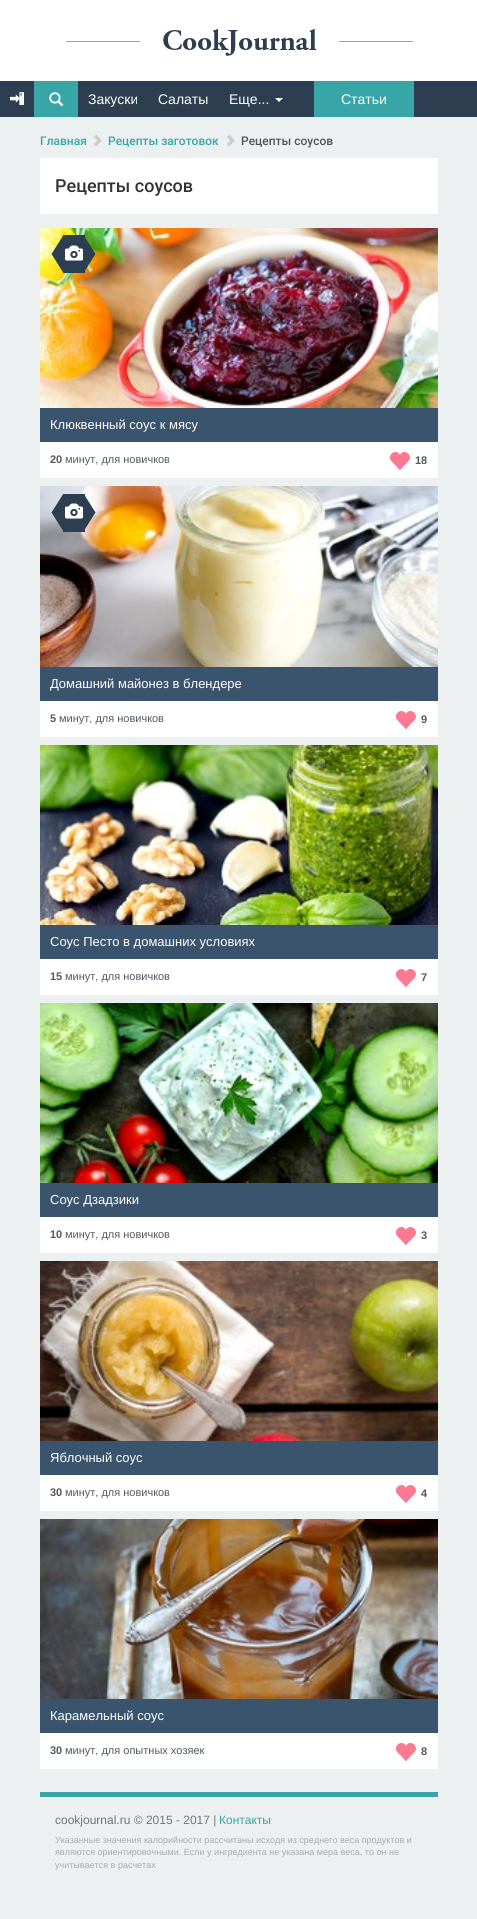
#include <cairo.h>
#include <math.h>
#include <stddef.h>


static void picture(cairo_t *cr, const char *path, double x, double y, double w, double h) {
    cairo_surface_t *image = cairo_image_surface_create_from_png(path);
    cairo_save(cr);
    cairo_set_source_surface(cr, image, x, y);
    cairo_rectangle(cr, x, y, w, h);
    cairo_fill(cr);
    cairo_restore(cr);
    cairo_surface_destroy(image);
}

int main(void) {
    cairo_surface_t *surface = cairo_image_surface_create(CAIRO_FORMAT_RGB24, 477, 1919);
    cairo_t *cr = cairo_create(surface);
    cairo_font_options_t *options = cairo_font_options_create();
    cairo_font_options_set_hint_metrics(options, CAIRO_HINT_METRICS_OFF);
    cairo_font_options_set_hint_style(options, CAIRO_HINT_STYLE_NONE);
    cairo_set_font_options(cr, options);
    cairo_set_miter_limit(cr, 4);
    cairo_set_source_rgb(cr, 0.925, 0.941, 0.945);
    cairo_paint(cr);
    cairo_set_source_rgb(cr, 1, 1, 1);
    cairo_rectangle(cr, 0, 0, 477, 81);
    cairo_fill(cr);
    cairo_set_source_rgb(cr, 0.992, 0.475, 0.569);
    cairo_rectangle(cr, 66, 41, 347, 1);
    cairo_fill(cr);
    cairo_set_source_rgb(cr, 1, 1, 1);
    cairo_rectangle(cr, 140, 41, 199, 1);
    cairo_fill(cr);
    picture(cr, "img1.png", 163, 29, 154, 27);
    cairo_set_source_rgb(cr, 0.173, 0.243, 0.314);
    cairo_rectangle(cr, 0, 81, 477, 36);
    cairo_fill(cr);
    picture(cr, "img2.png", 10, 92, 14, 13);
    cairo_set_source_rgb(cr, 0.22, 0.651, 0.651);
    cairo_rectangle(cr, 34, 81, 44, 36);
    cairo_fill(cr);
    picture(cr, "img3.png", 49, 92, 15, 15);
    cairo_select_font_face(cr, "Liberation Sans", CAIRO_FONT_SLANT_NORMAL, CAIRO_FONT_WEIGHT_NORMAL);
    cairo_set_font_size(cr, 14);
    cairo_set_source_rgb(cr, 1, 1, 1);
    cairo_move_to(cr, 88, 104);
    cairo_show_text(cr, "Закуски");
    cairo_move_to(cr, 158, 104);
    cairo_show_text(cr, "Салаты");
    cairo_move_to(cr, 229, 104);
    cairo_show_text(cr, "Еще...");
    cairo_new_path(cr);
    cairo_move_to(cr, 275, 98);
    cairo_line_to(cr, 283, 98);
    cairo_line_to(cr, 279, 102);
    cairo_close_path(cr);
    cairo_fill(cr);
    cairo_set_source_rgb(cr, 0.22, 0.651, 0.651);
    cairo_rectangle(cr, 314, 81, 100, 36);
    cairo_fill(cr);
    cairo_set_source_rgb(cr, 1, 1, 1);
    cairo_move_to(cr, 341, 104);
    cairo_show_text(cr, "Статьи");
    cairo_select_font_face(cr, "Roboto Medium", CAIRO_FONT_SLANT_NORMAL, CAIRO_FONT_WEIGHT_NORMAL);
    cairo_set_font_size(cr, 12);
    cairo_set_source_rgb(cr, 0.22, 0.651, 0.651);
    cairo_move_to(cr, 40, 145);
    cairo_show_text(cr, "Главная");
    picture(cr, "img4.png", 94, 134, 8, 13);
    cairo_move_to(cr, 108, 145);
    cairo_show_text(cr, "Рецепты заготовок");
    picture(cr, "img4.png", 227, 134, 8, 13);
    cairo_set_source_rgb(cr, 0.329, 0.329, 0.329);
    cairo_move_to(cr, 241, 145);
    cairo_show_text(cr, "Рецепты соусов");
    cairo_set_source_rgb(cr, 1, 1, 1);
    cairo_rectangle(cr, 40, 158, 398, 56);
    cairo_fill(cr);
    cairo_set_font_size(cr, 18);
    cairo_set_source_rgb(cr, 0.2, 0.2, 0.2);
    cairo_move_to(cr, 55, 192);
    cairo_show_text(cr, "Рецепты соусов");
    cairo_set_source_rgb(cr, 1, 1, 1);
    cairo_rectangle(cr, 40, 442, 398, 36);
    cairo_fill(cr);
    picture(cr, "img5.png", 40, 228, 398, 180);
    cairo_set_source_rgb(cr, 0.173, 0.243, 0.314);
    cairo_rectangle(cr, 63, 235, 22, 38);
    cairo_fill(cr);
    cairo_new_path(cr);
    cairo_move_to(cr, 63.5, 235);
    cairo_line_to(cr, 63.5, 273);
    cairo_line_to(cr, 51.5, 254);
    cairo_close_path(cr);
    cairo_fill(cr);
    picture(cr, "img6.png", 65, 245, 18, 16);
    cairo_new_path(cr);
    cairo_move_to(cr, 83.5, 273);
    cairo_line_to(cr, 83.5, 235);
    cairo_line_to(cr, 95.5, 254);
    cairo_close_path(cr);
    cairo_fill(cr);
    cairo_set_source_rgb(cr, 0.227, 0.329, 0.431);
    cairo_rectangle(cr, 40, 408, 398, 34);
    cairo_fill(cr);
    cairo_select_font_face(cr, "Liberation Sans", CAIRO_FONT_SLANT_NORMAL, CAIRO_FONT_WEIGHT_NORMAL);
    cairo_set_font_size(cr, 13);
    cairo_set_source_rgb(cr, 1, 1, 1);
    cairo_move_to(cr, 50, 429);
    cairo_show_text(cr, "Клюквенный соус к мясу");
    cairo_select_font_face(cr, "Liberation Sans", CAIRO_FONT_SLANT_NORMAL, CAIRO_FONT_WEIGHT_BOLD);
    cairo_set_font_size(cr, 11);
    cairo_set_source_rgb(cr, 0.314, 0.349, 0.384);
    cairo_move_to(cr, 50, 463);
    cairo_show_text(cr, "20");
    cairo_select_font_face(cr, "Liberation Sans", CAIRO_FONT_SLANT_NORMAL, CAIRO_FONT_WEIGHT_NORMAL);
    cairo_move_to(cr, 65, 463);
    cairo_show_text(cr, "минут, для новичков");
    picture(cr, "img7.png", 389, 452, 21, 19);
    cairo_select_font_face(cr, "Liberation Sans", CAIRO_FONT_SLANT_NORMAL, CAIRO_FONT_WEIGHT_BOLD);
    cairo_move_to(cr, 415, 464);
    cairo_show_text(cr, "18");
    cairo_set_source_rgb(cr, 1, 1, 1);
    cairo_rectangle(cr, 40, 701, 398, 36);
    cairo_fill(cr);
    picture(cr, "img8.png", 40, 486, 398, 181);
    cairo_set_source_rgb(cr, 0.173, 0.243, 0.314);
    cairo_rectangle(cr, 63, 494, 22, 38);
    cairo_fill(cr);
    cairo_new_path(cr);
    cairo_move_to(cr, 63.5, 493.5);
    cairo_line_to(cr, 63.5, 531.5);
    cairo_line_to(cr, 51.5, 512.5);
    cairo_close_path(cr);
    cairo_fill(cr);
    picture(cr, "img6.png", 65, 503, 18, 16);
    cairo_new_path(cr);
    cairo_move_to(cr, 83.5, 531.5);
    cairo_line_to(cr, 83.5, 493.5);
    cairo_line_to(cr, 95.5, 512.5);
    cairo_close_path(cr);
    cairo_fill(cr);
    cairo_set_source_rgb(cr, 0.227, 0.329, 0.431);
    cairo_rectangle(cr, 40, 667, 398, 34);
    cairo_fill(cr);
    cairo_select_font_face(cr, "Liberation Sans", CAIRO_FONT_SLANT_NORMAL, CAIRO_FONT_WEIGHT_NORMAL);
    cairo_set_font_size(cr, 13);
    cairo_set_source_rgb(cr, 1, 1, 1);
    cairo_move_to(cr, 50, 688);
    cairo_show_text(cr, "Домашний майонез в блендере");
    cairo_select_font_face(cr, "Liberation Sans", CAIRO_FONT_SLANT_NORMAL, CAIRO_FONT_WEIGHT_BOLD);
    cairo_set_font_size(cr, 11);
    cairo_set_source_rgb(cr, 0.314, 0.349, 0.384);
    cairo_move_to(cr, 50, 722);
    cairo_show_text(cr, "5");
    cairo_select_font_face(cr, "Liberation Sans", CAIRO_FONT_SLANT_NORMAL, CAIRO_FONT_WEIGHT_NORMAL);
    cairo_move_to(cr, 59, 722);
    cairo_show_text(cr, "минут, для новичков");
    picture(cr, "img7.png", 395, 711, 21, 19);
    cairo_select_font_face(cr, "Liberation Sans", CAIRO_FONT_SLANT_NORMAL, CAIRO_FONT_WEIGHT_BOLD);
    cairo_move_to(cr, 421, 723);
    cairo_show_text(cr, "9");
    cairo_set_source_rgb(cr, 1, 1, 1);
    cairo_rectangle(cr, 40, 959, 398, 36);
    cairo_fill(cr);
    picture(cr, "img9.png", 40, 745, 398, 180);
    cairo_set_source_rgb(cr, 0.227, 0.329, 0.431);
    cairo_rectangle(cr, 40, 925, 398, 34);
    cairo_fill(cr);
    cairo_select_font_face(cr, "Liberation Sans", CAIRO_FONT_SLANT_NORMAL, CAIRO_FONT_WEIGHT_NORMAL);
    cairo_set_font_size(cr, 13);
    cairo_set_source_rgb(cr, 1, 1, 1);
    cairo_move_to(cr, 50, 946);
    cairo_show_text(cr, "Соус Песто в домашних условиях");
    cairo_select_font_face(cr, "Liberation Sans", CAIRO_FONT_SLANT_NORMAL, CAIRO_FONT_WEIGHT_BOLD);
    cairo_set_font_size(cr, 11);
    cairo_set_source_rgb(cr, 0.314, 0.349, 0.384);
    cairo_move_to(cr, 50, 980);
    cairo_show_text(cr, "15");
    cairo_select_font_face(cr, "Liberation Sans", CAIRO_FONT_SLANT_NORMAL, CAIRO_FONT_WEIGHT_NORMAL);
    cairo_move_to(cr, 65, 980);
    cairo_show_text(cr, "минут, для новичков");
    picture(cr, "img7.png", 395, 969, 21, 19);
    cairo_select_font_face(cr, "Liberation Sans", CAIRO_FONT_SLANT_NORMAL, CAIRO_FONT_WEIGHT_BOLD);
    cairo_move_to(cr, 421, 981);
    cairo_show_text(cr, "7");
    cairo_set_source_rgb(cr, 1, 1, 1);
    cairo_rectangle(cr, 40, 1217, 398, 36);
    cairo_fill(cr);
    picture(cr, "img10.png", 40, 1003, 398, 180);
    cairo_set_source_rgb(cr, 0.227, 0.329, 0.431);
    cairo_rectangle(cr, 40, 1183, 398, 34);
    cairo_fill(cr);
    cairo_select_font_face(cr, "Liberation Sans", CAIRO_FONT_SLANT_NORMAL, CAIRO_FONT_WEIGHT_NORMAL);
    cairo_set_font_size(cr, 13);
    cairo_set_source_rgb(cr, 1, 1, 1);
    cairo_move_to(cr, 50, 1204);
    cairo_show_text(cr, "Соус Дзадзики");
    cairo_select_font_face(cr, "Liberation Sans", CAIRO_FONT_SLANT_NORMAL, CAIRO_FONT_WEIGHT_BOLD);
    cairo_set_font_size(cr, 11);
    cairo_set_source_rgb(cr, 0.314, 0.349, 0.384);
    cairo_move_to(cr, 50, 1238);
    cairo_show_text(cr, "10");
    cairo_select_font_face(cr, "Liberation Sans", CAIRO_FONT_SLANT_NORMAL, CAIRO_FONT_WEIGHT_NORMAL);
    cairo_move_to(cr, 65, 1238);
    cairo_show_text(cr, "минут, для новичков");
    picture(cr, "img7.png", 395, 1227, 21, 19);
    cairo_select_font_face(cr, "Liberation Sans", CAIRO_FONT_SLANT_NORMAL, CAIRO_FONT_WEIGHT_BOLD);
    cairo_move_to(cr, 421, 1239);
    cairo_show_text(cr, "3");
    cairo_set_source_rgb(cr, 1, 1, 1);
    cairo_rectangle(cr, 40, 1475, 398, 36);
    cairo_fill(cr);
    picture(cr, "img11.png", 40, 1261, 398, 180);
    cairo_set_source_rgb(cr, 0.227, 0.329, 0.431);
    cairo_rectangle(cr, 40, 1441, 398, 34);
    cairo_fill(cr);
    cairo_select_font_face(cr, "Liberation Sans", CAIRO_FONT_SLANT_NORMAL, CAIRO_FONT_WEIGHT_NORMAL);
    cairo_set_font_size(cr, 13);
    cairo_set_source_rgb(cr, 1, 1, 1);
    cairo_move_to(cr, 50, 1462);
    cairo_show_text(cr, "Яблочный соус");
    cairo_select_font_face(cr, "Liberation Sans", CAIRO_FONT_SLANT_NORMAL, CAIRO_FONT_WEIGHT_BOLD);
    cairo_set_font_size(cr, 11);
    cairo_set_source_rgb(cr, 0.314, 0.349, 0.384);
    cairo_move_to(cr, 50, 1496);
    cairo_show_text(cr, "30");
    cairo_select_font_face(cr, "Liberation Sans", CAIRO_FONT_SLANT_NORMAL, CAIRO_FONT_WEIGHT_NORMAL);
    cairo_move_to(cr, 65, 1496);
    cairo_show_text(cr, "минут, для новичков");
    picture(cr, "img7.png", 395, 1485, 21, 19);
    cairo_select_font_face(cr, "Liberation Sans", CAIRO_FONT_SLANT_NORMAL, CAIRO_FONT_WEIGHT_BOLD);
    cairo_move_to(cr, 421, 1497);
    cairo_show_text(cr, "4");
    cairo_set_source_rgb(cr, 1, 1, 1);
    cairo_rectangle(cr, 40, 1733, 398, 36);
    cairo_fill(cr);
    picture(cr, "img12.png", 40, 1519, 398, 180);
    cairo_set_source_rgb(cr, 0.227, 0.329, 0.431);
    cairo_rectangle(cr, 40, 1699, 398, 34);
    cairo_fill(cr);
    cairo_select_font_face(cr, "Liberation Sans", CAIRO_FONT_SLANT_NORMAL, CAIRO_FONT_WEIGHT_NORMAL);
    cairo_set_font_size(cr, 13);
    cairo_set_source_rgb(cr, 1, 1, 1);
    cairo_move_to(cr, 50, 1720);
    cairo_show_text(cr, "Карамельный соус");
    cairo_select_font_face(cr, "Liberation Sans", CAIRO_FONT_SLANT_NORMAL, CAIRO_FONT_WEIGHT_BOLD);
    cairo_set_font_size(cr, 11);
    cairo_set_source_rgb(cr, 0.314, 0.349, 0.384);
    cairo_move_to(cr, 50, 1754);
    cairo_show_text(cr, "30");
    cairo_select_font_face(cr, "Liberation Sans", CAIRO_FONT_SLANT_NORMAL, CAIRO_FONT_WEIGHT_NORMAL);
    cairo_move_to(cr, 65, 1754);
    cairo_show_text(cr, "минут, для опытных хозяек");
    picture(cr, "img7.png", 395, 1743, 21, 19);
    cairo_select_font_face(cr, "Liberation Sans", CAIRO_FONT_SLANT_NORMAL, CAIRO_FONT_WEIGHT_BOLD);
    cairo_move_to(cr, 421, 1755);
    cairo_show_text(cr, "8");
    cairo_set_source_rgb(cr, 0.22, 0.651, 0.651);
    cairo_rectangle(cr, 40, 1792, 398, 5);
    cairo_fill(cr);
    cairo_select_font_face(cr, "Liberation Sans", CAIRO_FONT_SLANT_NORMAL, CAIRO_FONT_WEIGHT_NORMAL);
    cairo_set_font_size(cr, 12);
    cairo_set_source_rgb(cr, 0.455, 0.455, 0.455);
    cairo_move_to(cr, 55, 1824);
    cairo_show_text(cr, "cookjournal.ru © 2015 - 2017 |");
    cairo_set_source_rgb(cr, 0.22, 0.651, 0.651);
    cairo_move_to(cr, 219, 1824);
    cairo_show_text(cr, "Контакты");
    cairo_set_font_size(cr, 9);
    cairo_set_source_rgb(cr, 0.667, 0.667, 0.667);
    cairo_move_to(cr, 55, 1843);
    cairo_show_text(cr, "Указанные значения калорийности рассчитаны исходя из среднего веса продуктов и");
    cairo_move_to(cr, 55, 1855);
    cairo_show_text(cr, "являются ориентировочными. Если у ингредиента не указана мера веса, то он не");
    cairo_move_to(cr, 55, 1868);
    cairo_show_text(cr, "учитывается в расчетах");
    cairo_surface_write_to_png(surface, "page.png");
    cairo_font_options_destroy(options);
    cairo_destroy(cr);
    cairo_surface_destroy(surface);
    return 0;
}
